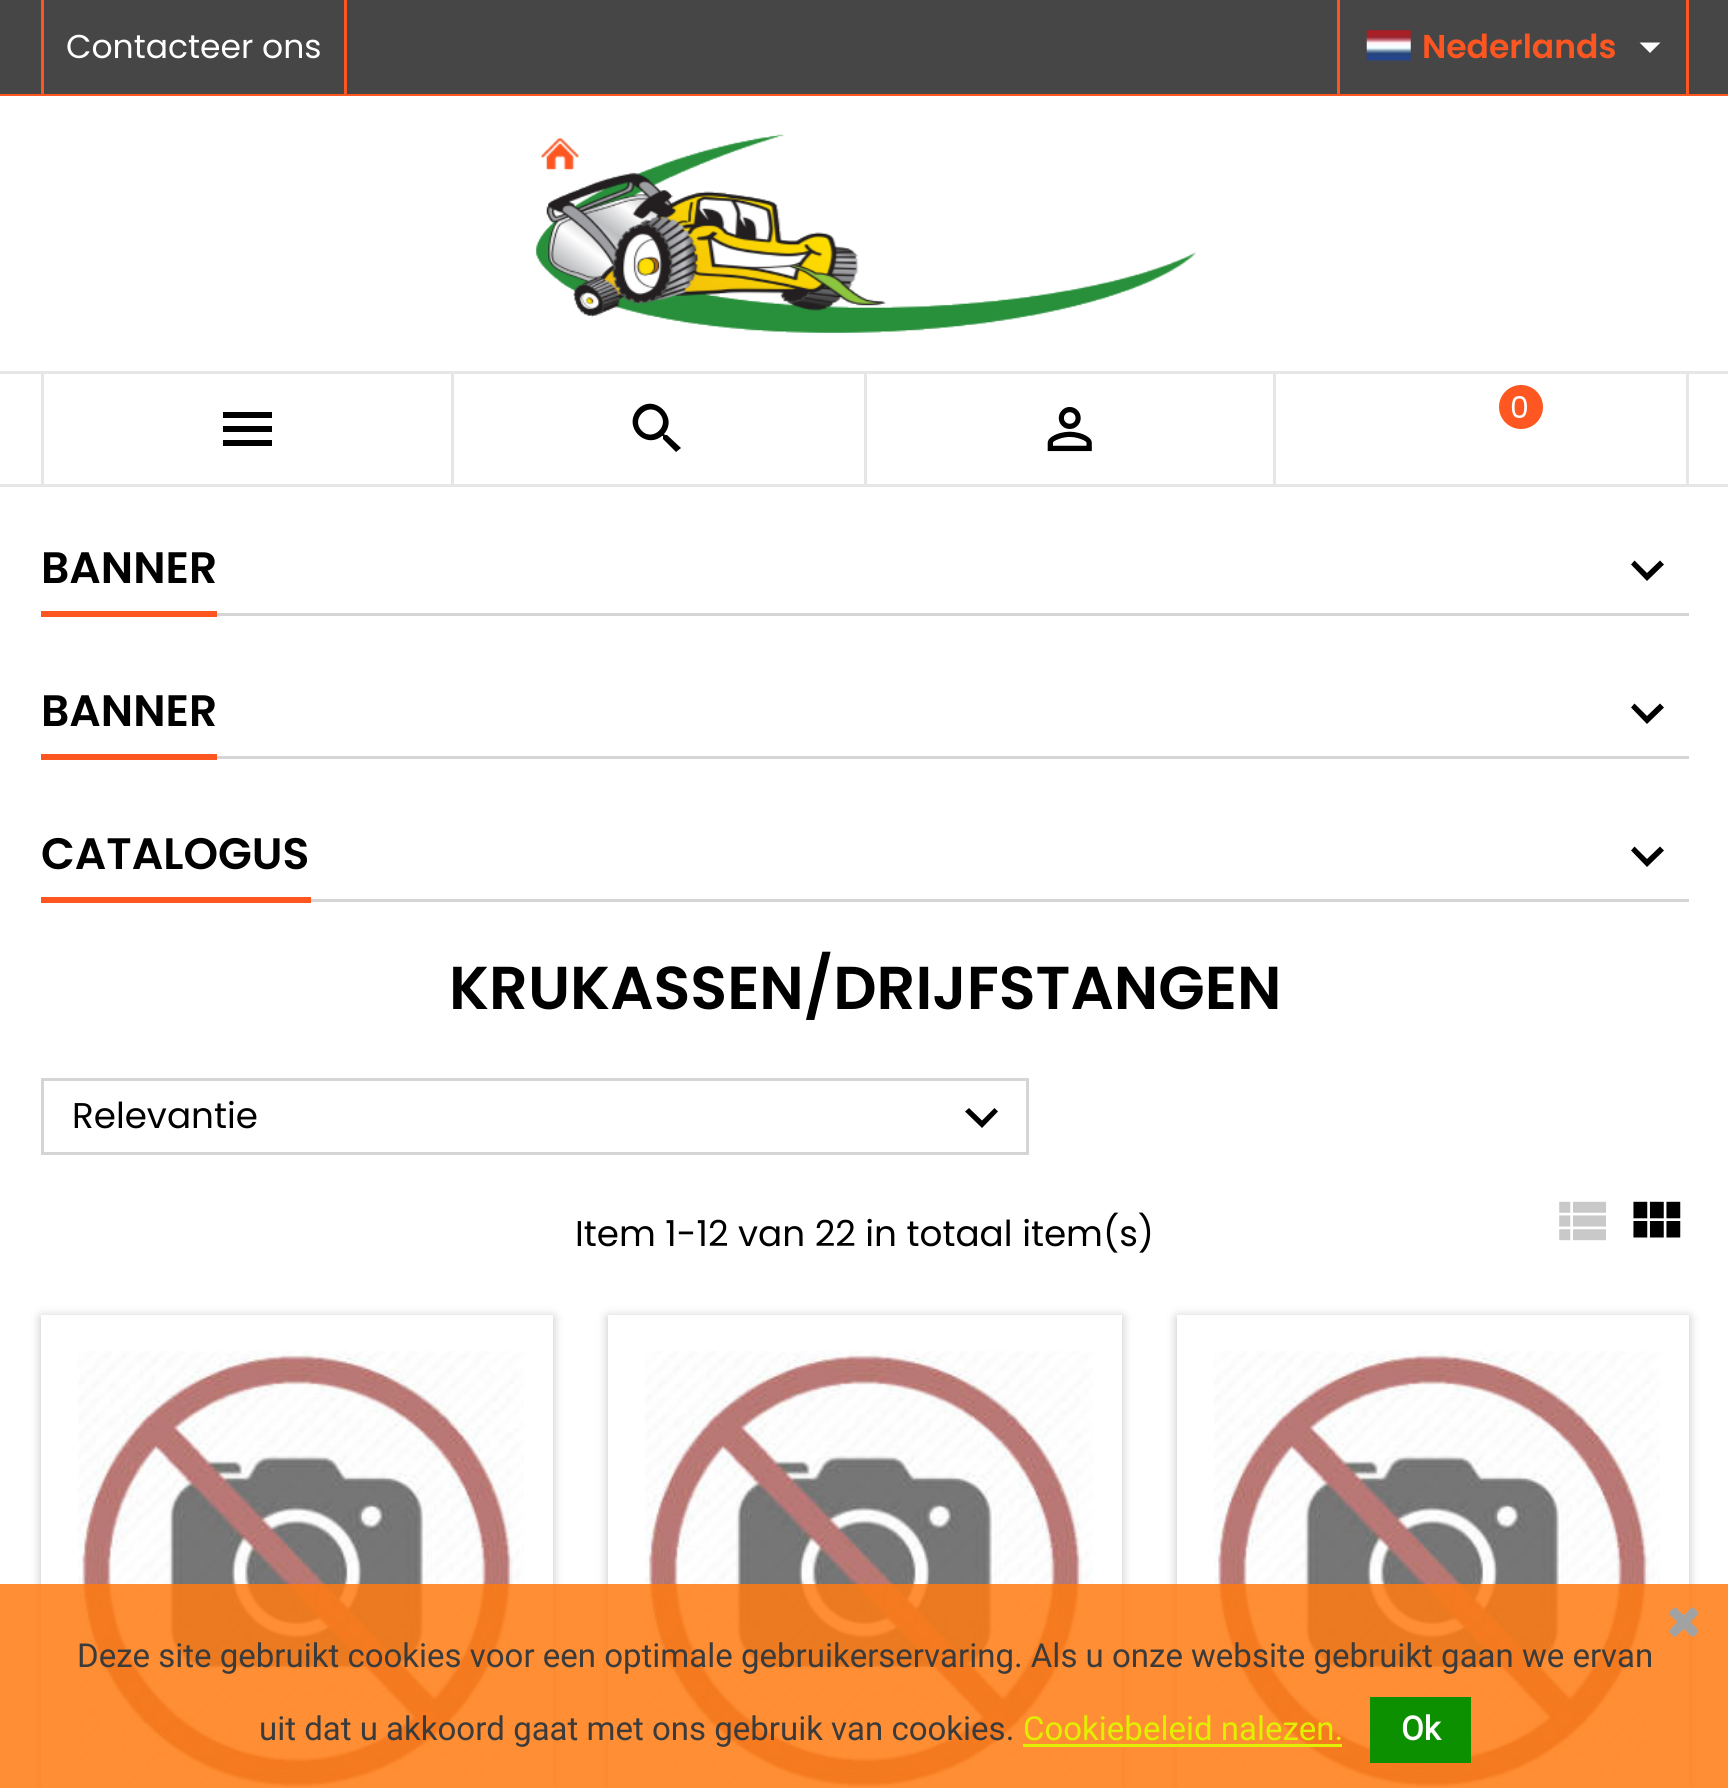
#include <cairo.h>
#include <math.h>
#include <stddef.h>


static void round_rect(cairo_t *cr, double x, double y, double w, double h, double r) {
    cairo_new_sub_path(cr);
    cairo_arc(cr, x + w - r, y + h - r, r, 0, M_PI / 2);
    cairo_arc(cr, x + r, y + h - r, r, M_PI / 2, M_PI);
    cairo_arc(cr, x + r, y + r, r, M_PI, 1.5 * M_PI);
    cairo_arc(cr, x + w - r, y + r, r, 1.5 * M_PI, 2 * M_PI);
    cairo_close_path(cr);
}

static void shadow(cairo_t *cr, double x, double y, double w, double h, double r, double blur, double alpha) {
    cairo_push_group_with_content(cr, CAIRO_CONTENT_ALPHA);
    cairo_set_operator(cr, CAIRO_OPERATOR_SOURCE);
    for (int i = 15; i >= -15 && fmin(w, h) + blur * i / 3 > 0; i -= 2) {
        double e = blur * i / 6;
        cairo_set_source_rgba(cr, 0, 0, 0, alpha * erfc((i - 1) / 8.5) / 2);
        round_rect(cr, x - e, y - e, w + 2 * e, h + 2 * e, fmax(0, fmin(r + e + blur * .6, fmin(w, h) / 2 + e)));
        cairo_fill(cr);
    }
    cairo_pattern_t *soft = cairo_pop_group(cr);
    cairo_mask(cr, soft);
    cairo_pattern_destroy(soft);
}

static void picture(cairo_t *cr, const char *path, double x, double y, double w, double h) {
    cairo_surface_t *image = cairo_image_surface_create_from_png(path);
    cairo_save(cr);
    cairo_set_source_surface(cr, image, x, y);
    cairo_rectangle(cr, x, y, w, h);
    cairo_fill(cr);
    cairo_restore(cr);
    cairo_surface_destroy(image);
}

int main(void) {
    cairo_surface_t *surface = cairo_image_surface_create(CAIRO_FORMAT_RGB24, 1728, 1788);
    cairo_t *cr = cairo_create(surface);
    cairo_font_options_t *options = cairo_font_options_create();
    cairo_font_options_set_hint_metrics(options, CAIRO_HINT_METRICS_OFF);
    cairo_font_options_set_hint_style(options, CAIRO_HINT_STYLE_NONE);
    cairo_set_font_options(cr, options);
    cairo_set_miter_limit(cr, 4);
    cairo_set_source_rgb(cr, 1, 1, 1);
    cairo_paint(cr);
    cairo_set_source_rgb(cr, 0.278, 0.275, 0.275);
    cairo_rectangle(cr, 0, 0, 1728, 94);
    cairo_fill(cr);
    cairo_set_source_rgb(cr, 0.996, 0.337, 0.129);
    cairo_rectangle(cr, 0, 94, 1728, 2);
    cairo_fill(cr);
    cairo_rectangle(cr, 344, 0, 3, 94);
    cairo_fill(cr);
    cairo_rectangle(cr, 41, 0, 3, 94);
    cairo_fill(cr);
    cairo_select_font_face(cr, "Poppins", CAIRO_FONT_SLANT_NORMAL, CAIRO_FONT_WEIGHT_NORMAL);
    cairo_set_font_size(cr, 33);
    cairo_set_source_rgb(cr, 1, 1, 1);
    cairo_move_to(cr, 66, 58);
    cairo_show_text(cr, "Contacteer ons");
    cairo_set_source_rgb(cr, 0.996, 0.337, 0.129);
    cairo_rectangle(cr, 1686, 0, 3, 94);
    cairo_fill(cr);
    cairo_rectangle(cr, 1337, 0, 3, 94);
    cairo_fill(cr);
    picture(cr, "img1.png", 1366, 30, 45, 31);
    cairo_select_font_face(cr, "Poppins SemiBold", CAIRO_FONT_SLANT_NORMAL, CAIRO_FONT_WEIGHT_NORMAL);
    cairo_move_to(cr, 1422, 58);
    cairo_show_text(cr, "Nederlands");
    cairo_set_source_rgb(cr, 1, 1, 1);
    cairo_new_path(cr);
    cairo_move_to(cr, 1639.5, 42.5);
    cairo_line_to(cr, 1660.5, 42.5);
    cairo_line_to(cr, 1650, 53);
    cairo_close_path(cr);
    cairo_fill(cr);
    picture(cr, "img2.png", 536, 134, 661, 199);
    cairo_set_source_rgb(cr, 0.902, 0.902, 0.902);
    cairo_rectangle(cr, 0, 371, 1728, 3);
    cairo_fill(cr);
    cairo_rectangle(cr, 0, 484, 1728, 3);
    cairo_fill(cr);
    cairo_rectangle(cr, 451, 374, 3, 110);
    cairo_fill(cr);
    cairo_rectangle(cr, 41, 374, 3, 110);
    cairo_fill(cr);
    cairo_set_source_rgb(cr, 0, 0, 0);
    cairo_new_path(cr);
    cairo_move_to(cr, 223, 412);
    cairo_line_to(cr, 272, 412);
    cairo_line_to(cr, 272, 418);
    cairo_line_to(cr, 223, 418);
    cairo_close_path(cr);
    cairo_move_to(cr, 223, 432);
    cairo_line_to(cr, 223, 426);
    cairo_line_to(cr, 272, 426);
    cairo_line_to(cr, 272, 432);
    cairo_close_path(cr);
    cairo_move_to(cr, 223, 446);
    cairo_line_to(cr, 223, 440);
    cairo_line_to(cr, 272, 440);
    cairo_line_to(cr, 272, 446);
    cairo_close_path(cr);
    cairo_fill(cr);
    cairo_set_source_rgb(cr, 0.902, 0.902, 0.902);
    cairo_rectangle(cr, 864, 374, 3, 110);
    cairo_fill(cr);
    cairo_set_source_rgb(cr, 0, 0, 0);
    cairo_new_path(cr);
    cairo_move_to(cr, 642, 431);
    cairo_curve_to(cr, 653, 442, 671, 425, 659, 413);
    cairo_curve_to(cr, 648, 402, 630, 419, 642, 431);
    cairo_close_path(cr);
    cairo_move_to(cr, 667, 435);
    cairo_line_to(cr, 681, 448);
    cairo_line_to(cr, 676, 452);
    cairo_line_to(cr, 663, 439);
    cairo_line_to(cr, 663, 436);
    cairo_line_to(cr, 662, 436);
    cairo_curve_to(cr, 645, 450, 622, 426, 638, 409);
    cairo_curve_to(cr, 654, 393, 679, 417, 664, 434);
    cairo_line_to(cr, 665, 435);
    cairo_close_path(cr);
    cairo_fill(cr);
    cairo_set_source_rgb(cr, 0.902, 0.902, 0.902);
    cairo_rectangle(cr, 1273, 374, 3, 110);
    cairo_fill(cr);
    picture(cr, "img3.png", 1047, 407, 45, 45);
    cairo_rectangle(cr, 1686, 374, 3, 110);
    cairo_fill(cr);
    cairo_set_source_rgb(cr, 1, 0.341, 0.133);
    cairo_arc(cr, 1521, 407, 22, 0, 2 * M_PI);
    cairo_fill(cr);
    cairo_select_font_face(cr, "Poppins", CAIRO_FONT_SLANT_NORMAL, CAIRO_FONT_WEIGHT_NORMAL);
    cairo_set_font_size(cr, 30);
    cairo_set_source_rgb(cr, 1, 1, 1);
    cairo_move_to(cr, 1510, 418);
    cairo_show_text(cr, "0");
    cairo_set_source_rgb(cr, 0.839, 0.831, 0.831);
    cairo_rectangle(cr, 217, 613, 1472, 3);
    cairo_fill(cr);
    cairo_set_source_rgb(cr, 0.996, 0.337, 0.129);
    cairo_rectangle(cr, 41, 611, 176, 6);
    cairo_fill(cr);
    cairo_select_font_face(cr, "Poppins SemiBold", CAIRO_FONT_SLANT_NORMAL, CAIRO_FONT_WEIGHT_NORMAL);
    cairo_set_font_size(cr, 44);
    cairo_set_source_rgb(cr, 0, 0, 0);
    cairo_move_to(cr, 41, 583);
    cairo_show_text(cr, "BANNER");
    cairo_new_path(cr);
    cairo_move_to(cr, 1634.5, 560.5);
    cairo_line_to(cr, 1647, 573);
    cairo_line_to(cr, 1660, 560.5);
    cairo_line_to(cr, 1664, 564.5);
    cairo_line_to(cr, 1647, 581);
    cairo_line_to(cr, 1631, 564.5);
    cairo_close_path(cr);
    cairo_fill(cr);
    cairo_set_source_rgb(cr, 0.839, 0.831, 0.831);
    cairo_rectangle(cr, 217, 756, 1472, 3);
    cairo_fill(cr);
    cairo_set_source_rgb(cr, 0.996, 0.337, 0.129);
    cairo_rectangle(cr, 41, 754, 176, 6);
    cairo_fill(cr);
    cairo_set_source_rgb(cr, 0, 0, 0);
    cairo_move_to(cr, 41, 726);
    cairo_show_text(cr, "BANNER");
    cairo_new_path(cr);
    cairo_move_to(cr, 1634.5, 703.5);
    cairo_line_to(cr, 1647, 716);
    cairo_line_to(cr, 1660, 703.5);
    cairo_line_to(cr, 1664, 707.5);
    cairo_line_to(cr, 1647, 724);
    cairo_line_to(cr, 1631, 707.5);
    cairo_close_path(cr);
    cairo_fill(cr);
    cairo_set_source_rgb(cr, 0.839, 0.831, 0.831);
    cairo_rectangle(cr, 311, 899, 1378, 3);
    cairo_fill(cr);
    cairo_set_source_rgb(cr, 0.996, 0.337, 0.129);
    cairo_rectangle(cr, 41, 897, 270, 6);
    cairo_fill(cr);
    cairo_set_source_rgb(cr, 0, 0, 0);
    cairo_move_to(cr, 41, 869);
    cairo_show_text(cr, "CATALOGUS");
    cairo_new_path(cr);
    cairo_move_to(cr, 1634.5, 846.5);
    cairo_line_to(cr, 1647, 859);
    cairo_line_to(cr, 1660, 846.5);
    cairo_line_to(cr, 1664, 850.5);
    cairo_line_to(cr, 1647, 867);
    cairo_line_to(cr, 1631, 850.5);
    cairo_close_path(cr);
    cairo_fill(cr);
    cairo_set_font_size(cr, 60.5);
    cairo_move_to(cr, 449, 1009);
    cairo_show_text(cr, "KRUKASSEN/DRIJFSTANGEN");
    cairo_rectangle(cr, 42.5, 1079.5, 985, 74);
    cairo_set_source_rgb(cr, 0.839, 0.831, 0.831);
    cairo_set_line_width(cr, 3);
    cairo_stroke(cr);
    cairo_select_font_face(cr, "Poppins", CAIRO_FONT_SLANT_NORMAL, CAIRO_FONT_WEIGHT_NORMAL);
    cairo_set_font_size(cr, 35.75);
    cairo_set_source_rgb(cr, 0, 0, 0);
    cairo_move_to(cr, 72, 1128);
    cairo_show_text(cr, "Relevantie");
    cairo_new_path(cr);
    cairo_move_to(cr, 969, 1108);
    cairo_line_to(cr, 982, 1120.5);
    cairo_line_to(cr, 994.5, 1108);
    cairo_line_to(cr, 998, 1111.5);
    cairo_line_to(cr, 982, 1128);
    cairo_line_to(cr, 965, 1111.5);
    cairo_close_path(cr);
    cairo_fill(cr);
    cairo_move_to(cr, 575, 1246);
    cairo_show_text(cr, "Item 1-12 van 22 in totaal item(s)");
    picture(cr, "img4.png", 1559, 1201, 47, 40);
    picture(cr, "img5.png", 1633, 1201, 48, 37);
    cairo_set_source_rgb(cr, 0, 0, 0);
    shadow(cr, 41, 1317, 512, 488, 0, 5.5, 0.24);
    cairo_set_source_rgb(cr, 1, 1, 1);
    cairo_rectangle(cr, 41, 1315, 512, 473);
    cairo_fill(cr);
    picture(cr, "img6.png", 78, 1351, 446, 437);
    cairo_save(cr);
    cairo_set_fill_rule(cr, CAIRO_FILL_RULE_EVEN_ODD);
    cairo_new_path(cr);
    cairo_move_to(cr, 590, 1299);
    cairo_line_to(cr, 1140, 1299);
    cairo_line_to(cr, 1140, 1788);
    cairo_line_to(cr, 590, 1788);
    cairo_close_path(cr);
    cairo_move_to(cr, 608, 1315);
    cairo_line_to(cr, 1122, 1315);
    cairo_line_to(cr, 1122, 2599);
    cairo_line_to(cr, 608, 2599);
    cairo_close_path(cr);
    cairo_clip(cr);
    cairo_set_source_rgb(cr, 0, 0, 0);
    shadow(cr, 608, 1317, 514, 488, 0, 5.5, 0.24);
    cairo_restore(cr);
    picture(cr, "img7.png", 645, 1351, 448, 437);
    cairo_set_source_rgb(cr, 0, 0, 0);
    shadow(cr, 1177, 1317, 512, 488, 0, 5.5, 0.24);
    cairo_set_source_rgb(cr, 1, 1, 1);
    cairo_rectangle(cr, 1177, 1315, 512, 473);
    cairo_fill(cr);
    picture(cr, "img8.png", 1214, 1351, 446, 437);
    cairo_set_source_rgba(cr, 1, 0.482, 0.067, 0.85);
    cairo_rectangle(cr, 0, 1584, 1728, 204);
    cairo_fill(cr);
    picture(cr, "img9.png", 1669, 1607, 30, 30);
    cairo_select_font_face(cr, "Roboto", CAIRO_FONT_SLANT_NORMAL, CAIRO_FONT_WEIGHT_NORMAL);
    cairo_set_font_size(cr, 33);
    cairo_set_source_rgb(cr, 0.231, 0.231, 0.231);
    cairo_move_to(cr, 77, 1667);
    cairo_show_text(cr, "Deze site gebruikt cookies voor een optimale gebruikerservaring. Als u onze website gebruikt gaan we ervan");
    cairo_move_to(cr, 259, 1740);
    cairo_show_text(cr, "uit dat u akkoord gaat met ons gebruik van cookies.");
    cairo_set_source_rgb(cr, 0.878, 0.941, 0);
    cairo_move_to(cr, 1023, 1740);
    cairo_show_text(cr, "Cookiebeleid nalezen.");
    cairo_rectangle(cr, 1023, 1744, 319, 3);
    cairo_fill(cr);
    cairo_set_source_rgb(cr, 0.051, 0.565, 0);
    cairo_rectangle(cr, 1370, 1697, 101, 66);
    cairo_fill(cr);
    cairo_select_font_face(cr, "Roboto", CAIRO_FONT_SLANT_NORMAL, CAIRO_FONT_WEIGHT_BOLD);
    cairo_set_source_rgb(cr, 1, 1, 1);
    cairo_move_to(cr, 1401, 1740);
    cairo_show_text(cr, "Ok");
    cairo_surface_write_to_png(surface, "page.png");
    cairo_font_options_destroy(options);
    cairo_destroy(cr);
    cairo_surface_destroy(surface);
    return 0;
}
